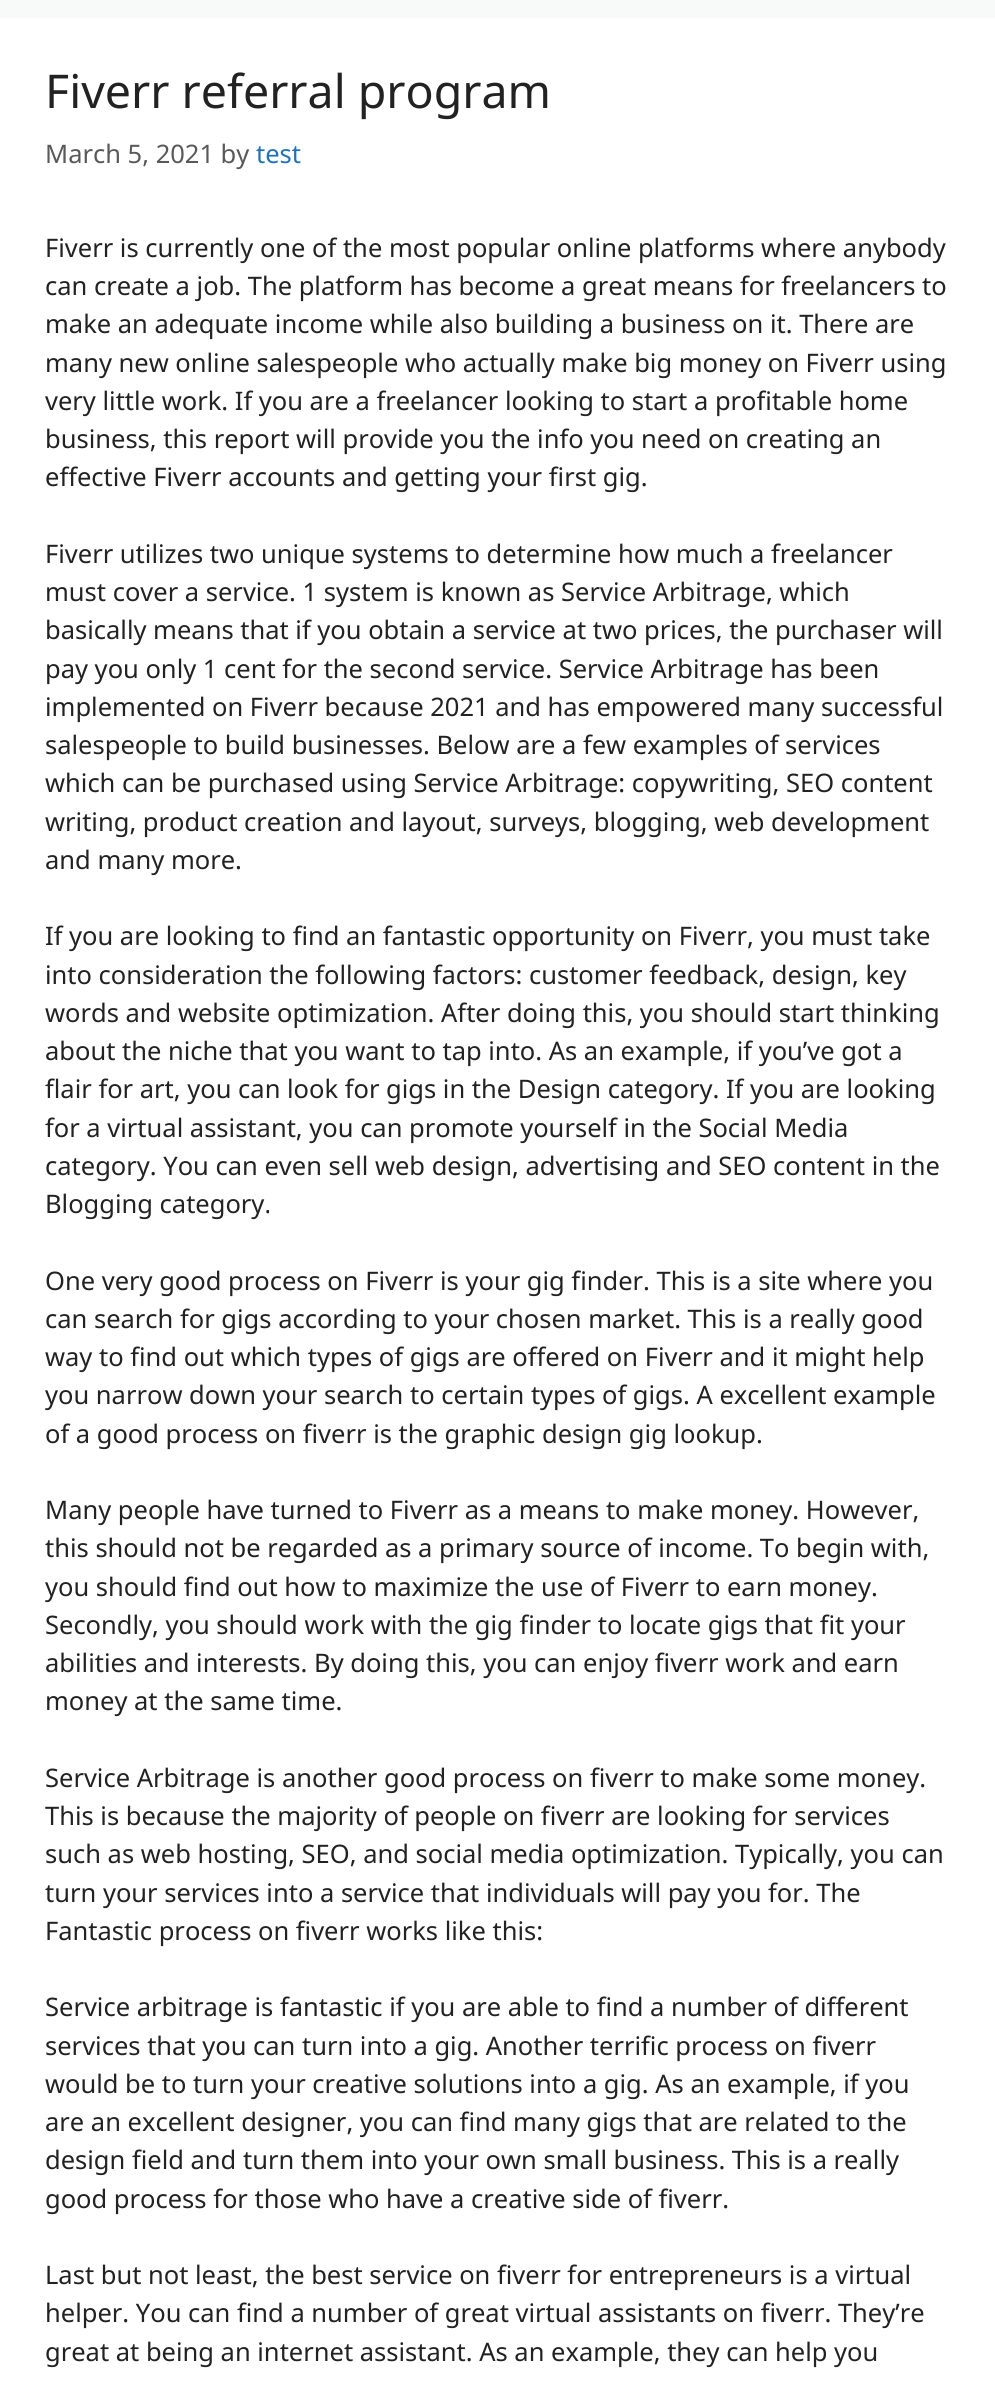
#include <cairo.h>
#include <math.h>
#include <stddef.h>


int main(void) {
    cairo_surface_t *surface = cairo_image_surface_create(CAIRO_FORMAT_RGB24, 995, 2393);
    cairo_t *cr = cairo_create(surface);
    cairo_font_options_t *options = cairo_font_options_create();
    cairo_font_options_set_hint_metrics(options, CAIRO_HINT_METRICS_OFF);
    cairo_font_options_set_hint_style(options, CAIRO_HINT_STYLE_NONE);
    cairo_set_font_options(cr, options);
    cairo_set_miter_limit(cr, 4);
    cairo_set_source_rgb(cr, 0.969, 0.973, 0.976);
    cairo_paint(cr);
    cairo_set_source_rgb(cr, 1, 1, 1);
    cairo_rectangle(cr, 0, 18, 995, 2375);
    cairo_fill(cr);
    cairo_select_font_face(cr, "Noto Sans", CAIRO_FONT_SLANT_NORMAL, CAIRO_FONT_WEIGHT_NORMAL);
    cairo_set_font_size(cr, 46.5);
    cairo_set_source_rgb(cr, 0.133, 0.133, 0.133);
    cairo_move_to(cr, 45, 108);
    cairo_show_text(cr, "Fiverr referral program");
    cairo_set_font_size(cr, 25.5);
    cairo_set_source_rgb(cr, 0.349, 0.349, 0.349);
    cairo_move_to(cr, 45, 163);
    cairo_show_text(cr, "March 5, 2021 by");
    cairo_set_source_rgb(cr, 0.118, 0.451, 0.745);
    cairo_move_to(cr, 256, 163);
    cairo_show_text(cr, "test");
    cairo_set_source_rgb(cr, 0.133, 0.133, 0.133);
    cairo_move_to(cr, 45, 257);
    cairo_show_text(cr, "Fiverr is currently one of the most popular online platforms where anybody");
    cairo_move_to(cr, 45, 295);
    cairo_show_text(cr, "can create a job. The platform has become a great means for freelancers to");
    cairo_move_to(cr, 45, 333);
    cairo_show_text(cr, "make an adequate income while also building a business on it. There are");
    cairo_move_to(cr, 45, 372);
    cairo_show_text(cr, "many new online salespeople who actually make big money on Fiverr using");
    cairo_move_to(cr, 45, 410);
    cairo_show_text(cr, "very little work. If you are a freelancer looking to start a profitable home");
    cairo_move_to(cr, 45, 448);
    cairo_show_text(cr, "business, this report will provide you the info you need on creating an");
    cairo_move_to(cr, 45, 486);
    cairo_show_text(cr, "effective Fiverr accounts and getting your first gig.");
    cairo_move_to(cr, 45, 563);
    cairo_show_text(cr, "Fiverr utilizes two unique systems to determine how much a freelancer");
    cairo_move_to(cr, 45, 601);
    cairo_show_text(cr, "must cover a service. 1 system is known as Service Arbitrage, which");
    cairo_move_to(cr, 45, 639);
    cairo_show_text(cr, "basically means that if you obtain a service at two prices, the purchaser will");
    cairo_move_to(cr, 45, 678);
    cairo_show_text(cr, "pay you only 1 cent for the second service. Service Arbitrage has been");
    cairo_move_to(cr, 45, 716);
    cairo_show_text(cr, "implemented on Fiverr because 2021 and has empowered many successful");
    cairo_move_to(cr, 45, 754);
    cairo_show_text(cr, "salespeople to build businesses. Below are a few examples of services");
    cairo_move_to(cr, 45, 792);
    cairo_show_text(cr, "which can be purchased using Service Arbitrage: copywriting, SEO content");
    cairo_move_to(cr, 45, 831);
    cairo_show_text(cr, "writing, product creation and layout, surveys, blogging, web development");
    cairo_move_to(cr, 45, 869);
    cairo_show_text(cr, "and many more.");
    cairo_move_to(cr, 45, 945);
    cairo_show_text(cr, "If you are looking to find an fantastic opportunity on Fiverr, you must take");
    cairo_move_to(cr, 45, 984);
    cairo_show_text(cr, "into consideration the following factors: customer feedback, design, key");
    cairo_move_to(cr, 45, 1022);
    cairo_show_text(cr, "words and website optimization. After doing this, you should start thinking");
    cairo_move_to(cr, 45, 1060);
    cairo_show_text(cr, "about the niche that you want to tap into. As an example, if you’ve got a");
    cairo_move_to(cr, 45, 1098);
    cairo_show_text(cr, "flair for art, you can look for gigs in the Design category. If you are looking");
    cairo_move_to(cr, 45, 1137);
    cairo_show_text(cr, "for a virtual assistant, you can promote yourself in the Social Media");
    cairo_move_to(cr, 45, 1175);
    cairo_show_text(cr, "category. You can even sell web design, advertising and SEO content in the");
    cairo_move_to(cr, 45, 1213);
    cairo_show_text(cr, "Blogging category.");
    cairo_move_to(cr, 45, 1290);
    cairo_show_text(cr, "One very good process on Fiverr is your gig finder. This is a site where you");
    cairo_move_to(cr, 45, 1328);
    cairo_show_text(cr, "can search for gigs according to your chosen market. This is a really good");
    cairo_move_to(cr, 45, 1366);
    cairo_show_text(cr, "way to find out which types of gigs are offered on Fiverr and it might help");
    cairo_move_to(cr, 45, 1404);
    cairo_show_text(cr, "you narrow down your search to certain types of gigs. A excellent example");
    cairo_move_to(cr, 45, 1443);
    cairo_show_text(cr, "of a good process on fiverr is the graphic design gig lookup.");
    cairo_move_to(cr, 45, 1519);
    cairo_show_text(cr, "Many people have turned to Fiverr as a means to make money. However,");
    cairo_move_to(cr, 45, 1557);
    cairo_show_text(cr, "this should not be regarded as a primary source of income. To begin with,");
    cairo_move_to(cr, 45, 1596);
    cairo_show_text(cr, "you should find out how to maximize the use of Fiverr to earn money.");
    cairo_move_to(cr, 45, 1634);
    cairo_show_text(cr, "Secondly, you should work with the gig finder to locate gigs that fit your");
    cairo_move_to(cr, 45, 1672);
    cairo_show_text(cr, "abilities and interests. By doing this, you can enjoy fiverr work and earn");
    cairo_move_to(cr, 45, 1710);
    cairo_show_text(cr, "money at the same time.");
    cairo_move_to(cr, 45, 1787);
    cairo_show_text(cr, "Service Arbitrage is another good process on fiverr to make some money.");
    cairo_move_to(cr, 45, 1825);
    cairo_show_text(cr, "This is because the majority of people on fiverr are looking for services");
    cairo_move_to(cr, 45, 1863);
    cairo_show_text(cr, "such as web hosting, SEO, and social media optimization. Typically, you can");
    cairo_move_to(cr, 45, 1902);
    cairo_show_text(cr, "turn your services into a service that individuals will pay you for. The");
    cairo_move_to(cr, 45, 1940);
    cairo_show_text(cr, "Fantastic process on fiverr works like this:");
    cairo_move_to(cr, 45, 2016);
    cairo_show_text(cr, "Service arbitrage is fantastic if you are able to find a number of different");
    cairo_move_to(cr, 45, 2055);
    cairo_show_text(cr, "services that you can turn into a gig. Another terrific process on fiverr");
    cairo_move_to(cr, 45, 2093);
    cairo_show_text(cr, "would be to turn your creative solutions into a gig. As an example, if you");
    cairo_move_to(cr, 45, 2131);
    cairo_show_text(cr, "are an excellent designer, you can find many gigs that are related to the");
    cairo_move_to(cr, 45, 2169);
    cairo_show_text(cr, "design field and turn them into your own small business. This is a really");
    cairo_move_to(cr, 45, 2208);
    cairo_show_text(cr, "good process for those who have a creative side of fiverr.");
    cairo_move_to(cr, 45, 2284);
    cairo_show_text(cr, "Last but not least, the best service on fiverr for entrepreneurs is a virtual");
    cairo_move_to(cr, 45, 2322);
    cairo_show_text(cr, "helper. You can find a number of great virtual assistants on fiverr. They’re");
    cairo_move_to(cr, 45, 2361);
    cairo_show_text(cr, "great at being an internet assistant. As an example, they can help you");
    cairo_surface_write_to_png(surface, "page.png");
    cairo_font_options_destroy(options);
    cairo_destroy(cr);
    cairo_surface_destroy(surface);
    return 0;
}
